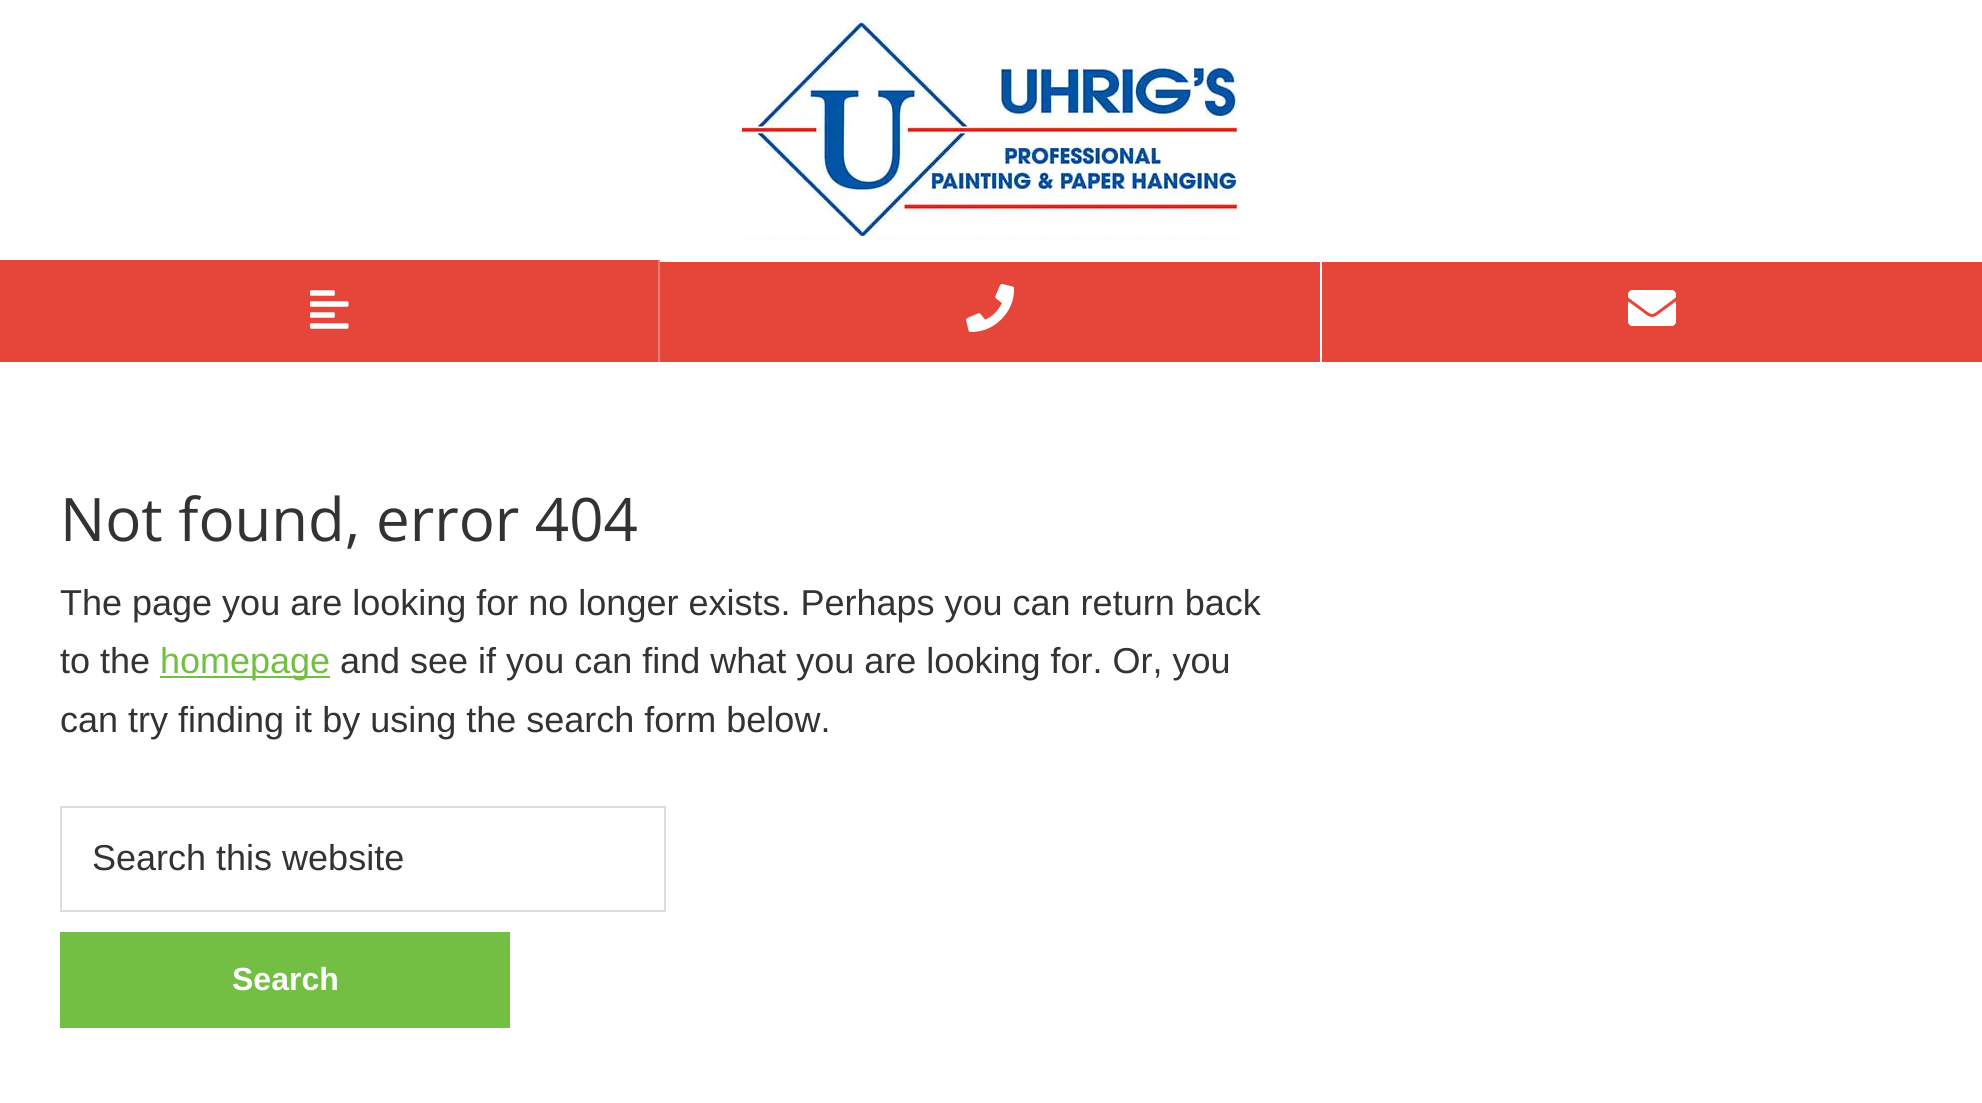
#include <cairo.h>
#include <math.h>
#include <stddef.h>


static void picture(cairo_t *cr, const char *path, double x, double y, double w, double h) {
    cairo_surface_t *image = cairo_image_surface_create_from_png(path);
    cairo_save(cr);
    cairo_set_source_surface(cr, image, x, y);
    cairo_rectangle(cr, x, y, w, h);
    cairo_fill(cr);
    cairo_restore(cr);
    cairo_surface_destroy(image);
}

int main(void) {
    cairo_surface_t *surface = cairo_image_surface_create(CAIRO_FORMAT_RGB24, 1982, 1103);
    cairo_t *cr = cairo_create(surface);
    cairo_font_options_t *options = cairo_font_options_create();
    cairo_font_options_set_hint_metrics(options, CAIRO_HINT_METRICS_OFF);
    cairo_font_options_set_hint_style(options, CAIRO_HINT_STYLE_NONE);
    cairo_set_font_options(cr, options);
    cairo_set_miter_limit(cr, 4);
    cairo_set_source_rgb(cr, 1, 1, 1);
    cairo_paint(cr);
    picture(cr, "img1.png", 742, 20, 497, 220);
    cairo_set_source_rgb(cr, 0.902, 0.275, 0.227);
    cairo_rectangle(cr, 0, 260, 658, 102);
    cairo_fill(cr);
    cairo_set_source_rgb(cr, 0.933, 0.494, 0.459);
    cairo_rectangle(cr, 658, 260, 2, 102);
    cairo_fill(cr);
    picture(cr, "img2.png", 310, 290, 39, 39);
    cairo_set_source_rgb(cr, 0.902, 0.275, 0.227);
    cairo_rectangle(cr, 660, 262, 660, 100);
    cairo_fill(cr);
    picture(cr, "img3.png", 966, 284, 49, 48);
    cairo_rectangle(cr, 1322, 262, 660, 100);
    cairo_fill(cr);
    picture(cr, "img4.png", 1628, 290, 48, 36);
    cairo_select_font_face(cr, "Open Sans", CAIRO_FONT_SLANT_NORMAL, CAIRO_FONT_WEIGHT_NORMAL);
    cairo_set_font_size(cr, 60);
    cairo_set_source_rgb(cr, 0.2, 0.2, 0.2);
    cairo_move_to(cr, 60, 541);
    cairo_show_text(cr, "Not found, error 404");
    cairo_select_font_face(cr, "Liberation Sans", CAIRO_FONT_SLANT_NORMAL, CAIRO_FONT_WEIGHT_NORMAL);
    cairo_set_font_size(cr, 36);
    cairo_move_to(cr, 60, 615);
    cairo_show_text(cr, "The page you are looking for no longer exists. Perhaps you can return back");
    cairo_move_to(cr, 60, 673);
    cairo_show_text(cr, "to the");
    cairo_set_source_rgb(cr, 0.447, 0.749, 0.267);
    cairo_rectangle(cr, 160, 676, 170, 2);
    cairo_fill(cr);
    cairo_move_to(cr, 160, 673);
    cairo_show_text(cr, "homepage");
    cairo_set_source_rgb(cr, 0.2, 0.2, 0.2);
    cairo_move_to(cr, 340, 673);
    cairo_show_text(cr, "and see if you can find what you are looking for. Or, you");
    cairo_move_to(cr, 60, 732);
    cairo_show_text(cr, "can try finding it by using the search form below.");
    cairo_rectangle(cr, 61, 807, 604, 104);
    cairo_set_source_rgb(cr, 0.867, 0.867, 0.867);
    cairo_stroke(cr);
    cairo_set_source_rgb(cr, 0.2, 0.2, 0.2);
    cairo_move_to(cr, 92, 870);
    cairo_show_text(cr, "Search this website");
    cairo_set_source_rgb(cr, 0.447, 0.749, 0.267);
    cairo_rectangle(cr, 60, 932, 450, 96);
    cairo_fill(cr);
    cairo_select_font_face(cr, "Liberation Sans", CAIRO_FONT_SLANT_NORMAL, CAIRO_FONT_WEIGHT_BOLD);
    cairo_set_font_size(cr, 32);
    cairo_set_source_rgb(cr, 1, 1, 1);
    cairo_move_to(cr, 232, 990);
    cairo_show_text(cr, "Search");
    cairo_surface_write_to_png(surface, "page.png");
    cairo_font_options_destroy(options);
    cairo_destroy(cr);
    cairo_surface_destroy(surface);
    return 0;
}
